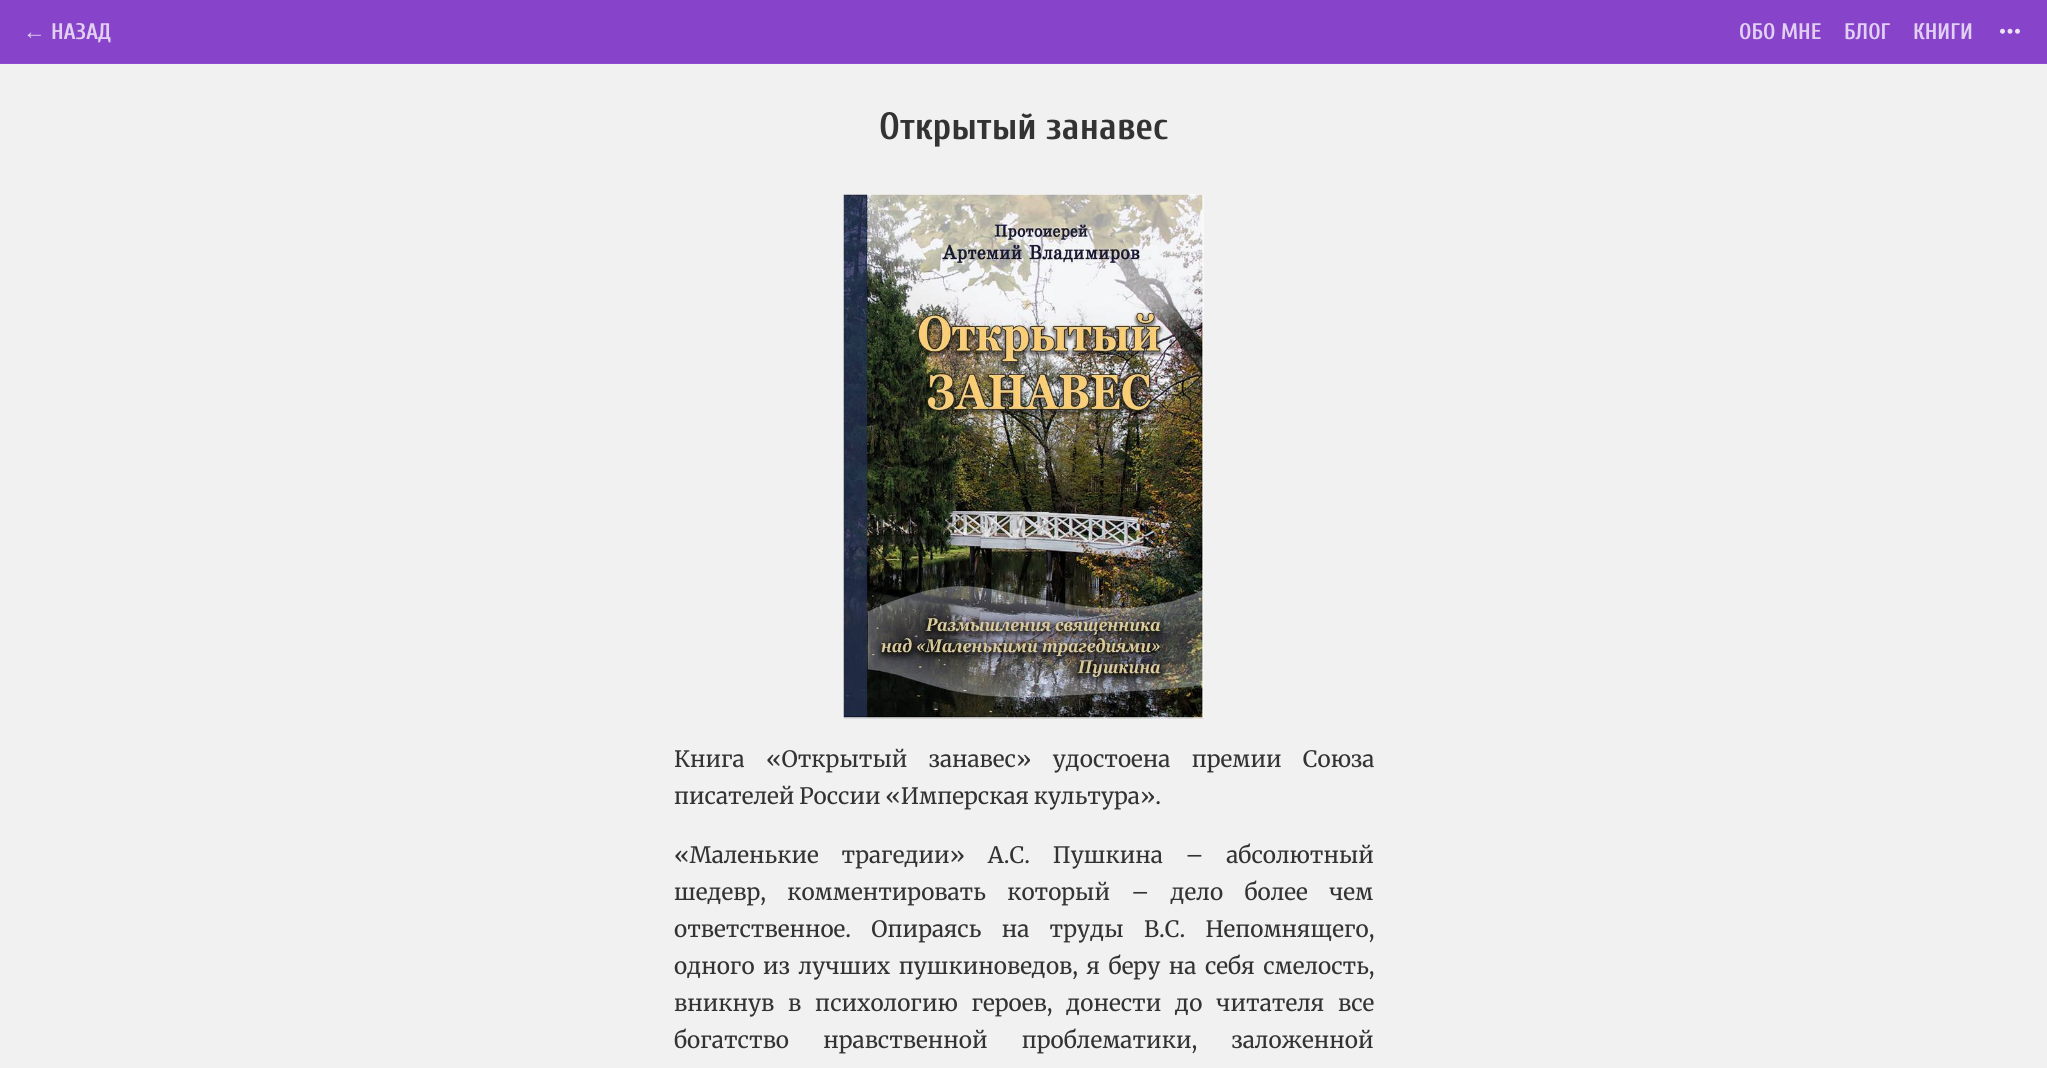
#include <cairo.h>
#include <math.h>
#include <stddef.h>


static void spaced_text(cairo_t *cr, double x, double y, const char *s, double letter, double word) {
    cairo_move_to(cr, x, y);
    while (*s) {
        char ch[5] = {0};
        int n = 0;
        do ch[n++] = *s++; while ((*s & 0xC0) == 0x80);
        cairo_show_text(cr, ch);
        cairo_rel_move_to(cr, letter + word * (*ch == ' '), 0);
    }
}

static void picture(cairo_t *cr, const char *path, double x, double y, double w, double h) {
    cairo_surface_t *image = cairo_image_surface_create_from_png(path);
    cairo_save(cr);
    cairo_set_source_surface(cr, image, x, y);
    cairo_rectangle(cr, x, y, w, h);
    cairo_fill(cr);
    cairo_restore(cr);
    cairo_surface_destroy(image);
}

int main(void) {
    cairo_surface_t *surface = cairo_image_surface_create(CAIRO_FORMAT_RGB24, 2047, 1068);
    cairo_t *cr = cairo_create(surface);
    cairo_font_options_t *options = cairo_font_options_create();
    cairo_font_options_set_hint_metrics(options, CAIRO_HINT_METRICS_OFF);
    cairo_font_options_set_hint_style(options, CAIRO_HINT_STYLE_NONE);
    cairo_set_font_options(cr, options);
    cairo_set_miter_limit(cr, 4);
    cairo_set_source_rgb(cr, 0.945, 0.945, 0.945);
    cairo_paint(cr);
    cairo_set_source_rgb(cr, 0.529, 0.263, 0.792);
    cairo_rectangle(cr, 0, 0, 2047, 63);
    cairo_fill(cr);
    cairo_set_source_rgb(cr, 0.553, 0.298, 0.804);
    cairo_rectangle(cr, 0, 63, 2047, 1);
    cairo_fill(cr);
    cairo_select_font_face(cr, "Liberation Sans", CAIRO_FONT_SLANT_NORMAL, CAIRO_FONT_WEIGHT_NORMAL);
    cairo_set_font_size(cr, 22.5);
    cairo_set_source_rgb(cr, 0.882, 0.816, 0.949);
    cairo_move_to(cr, 23, 39);
    cairo_show_text(cr, "←");
    cairo_select_font_face(cr, "Cuprum", CAIRO_FONT_SLANT_NORMAL, CAIRO_FONT_WEIGHT_BOLD);
    cairo_move_to(cr, 51, 39);
    cairo_show_text(cr, "НАЗАД");
    cairo_move_to(cr, 1739, 39);
    cairo_show_text(cr, "ОБО МНЕ");
    cairo_move_to(cr, 1844, 39);
    cairo_show_text(cr, "БЛОГ");
    cairo_move_to(cr, 1913, 39);
    cairo_show_text(cr, "КНИГИ");
    picture(cr, "img1.png", 2000, 28, 20, 6);
    cairo_set_font_size(cr, 38);
    cairo_set_source_rgb(cr, 0.2, 0.2, 0.2);
    cairo_move_to(cr, 879, 139);
    cairo_show_text(cr, "Открытый занавес");
    picture(cr, "img2.png", 843, 194, 361, 525);
    cairo_select_font_face(cr, "Merriweather", CAIRO_FONT_SLANT_NORMAL, CAIRO_FONT_WEIGHT_NORMAL);
    cairo_set_font_size(cr, 22.5);
    spaced_text(cr, 674, 767, "Книга «Открытый занавес» удостоена премии Союза", 0, 16);
    spaced_text(cr, 674, 804, "писателей России «Имперская культура».", 0, -0.5);
    spaced_text(cr, 674, 863, "«Маленькие трагедии» А.С. Пушкина – абсолютный", 0, 17.5);
    spaced_text(cr, 674, 900, "шедевр, комментировать который – дело более чем", 0, 16);
    spaced_text(cr, 674, 937, "ответственное. Опираясь на труды В.С. Непомнящего,", 0, 15);
    spaced_text(cr, 674, 974, "одного из лучших пушкиноведов, я беру на себя смелость,", 0, 3.25);
    spaced_text(cr, 674, 1011, "вникнув в психологию героев, донести до читателя все", 0, 8.5);
    spaced_text(cr, 674, 1048, "богатство нравственной проблематики, заложенной", 0, 29);
    cairo_surface_write_to_png(surface, "page.png");
    cairo_font_options_destroy(options);
    cairo_destroy(cr);
    cairo_surface_destroy(surface);
    return 0;
}
